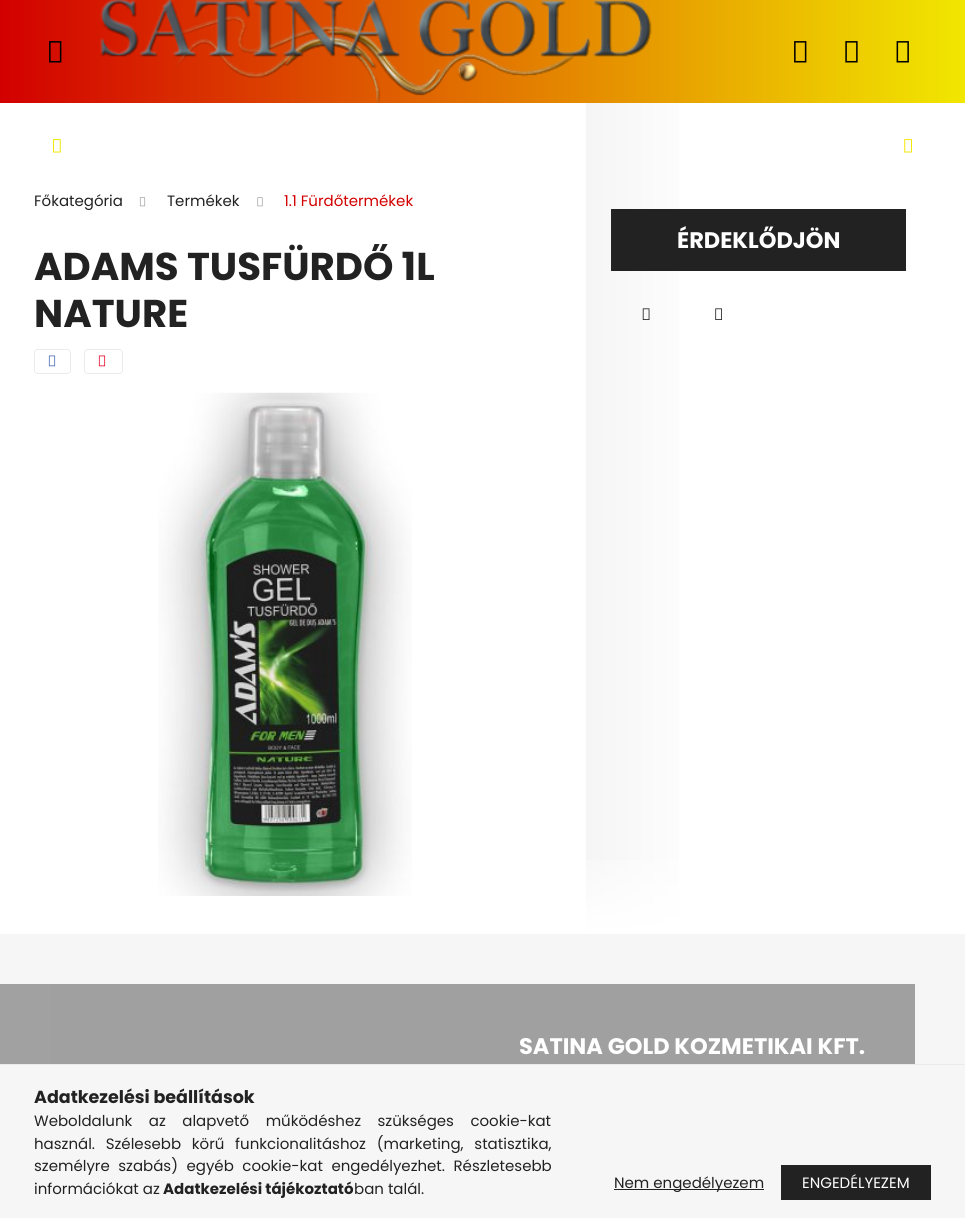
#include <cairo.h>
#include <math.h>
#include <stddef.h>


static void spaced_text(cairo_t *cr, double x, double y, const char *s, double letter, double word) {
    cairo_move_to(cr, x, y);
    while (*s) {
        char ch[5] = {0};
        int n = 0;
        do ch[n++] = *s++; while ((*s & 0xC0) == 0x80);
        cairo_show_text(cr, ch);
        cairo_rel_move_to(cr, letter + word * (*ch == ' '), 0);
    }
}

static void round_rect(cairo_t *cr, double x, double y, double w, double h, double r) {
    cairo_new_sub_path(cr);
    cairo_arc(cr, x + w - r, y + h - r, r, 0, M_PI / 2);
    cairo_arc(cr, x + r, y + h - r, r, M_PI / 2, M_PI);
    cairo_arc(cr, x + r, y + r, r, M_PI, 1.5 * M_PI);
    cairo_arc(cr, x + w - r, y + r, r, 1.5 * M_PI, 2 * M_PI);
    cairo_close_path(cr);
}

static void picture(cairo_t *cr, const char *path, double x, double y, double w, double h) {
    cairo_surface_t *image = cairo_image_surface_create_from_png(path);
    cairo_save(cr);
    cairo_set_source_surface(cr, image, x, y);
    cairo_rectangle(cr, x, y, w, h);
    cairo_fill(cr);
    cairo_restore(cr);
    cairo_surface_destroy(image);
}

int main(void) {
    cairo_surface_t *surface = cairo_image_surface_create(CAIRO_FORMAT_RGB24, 965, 1218);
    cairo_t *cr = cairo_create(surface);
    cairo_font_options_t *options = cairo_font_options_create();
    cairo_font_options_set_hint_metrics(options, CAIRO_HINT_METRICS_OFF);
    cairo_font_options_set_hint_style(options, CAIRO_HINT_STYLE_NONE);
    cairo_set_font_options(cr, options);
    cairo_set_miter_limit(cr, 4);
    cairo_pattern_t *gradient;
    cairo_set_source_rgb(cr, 1, 1, 1);
    cairo_paint(cr);
    gradient = cairo_pattern_create_linear(0, 51, 965, 51);
    cairo_pattern_add_color_stop_rgba(gradient, 0, 0.827, 0, 0, 1);
    cairo_pattern_add_color_stop_rgba(gradient, 1, 0.945, 0.906, 0, 1);
    cairo_set_source(cr, gradient);
    cairo_pattern_destroy(gradient);
    cairo_rectangle(cr, 0, 0, 965, 103);
    cairo_fill(cr);
    picture(cr, "img1.png", 49, 41, 13, 22);
    picture(cr, "img2.png", 100, 0, 552, 103);
    picture(cr, "img3.png", 794, 41, 13, 22);
    picture(cr, "img4.png", 845, 41, 13, 22);
    picture(cr, "img5.png", 896, 41, 13, 22);
    picture(cr, "img6.png", 53, 139, 8, 14);
    picture(cr, "img7.png", 904, 139, 8, 14);
    cairo_select_font_face(cr, "Poppins", CAIRO_FONT_SLANT_NORMAL, CAIRO_FONT_WEIGHT_NORMAL);
    cairo_set_font_size(cr, 15);
    cairo_set_source_rgb(cr, 0.133, 0.133, 0.133);
    cairo_move_to(cr, 34, 206);
    cairo_show_text(cr, "Főkategória");
    picture(cr, "img8.png", 139, 197, 7, 10);
    cairo_move_to(cr, 167, 206);
    cairo_show_text(cr, "Termékek");
    picture(cr, "img9.png", 257, 197, 6, 10);
    cairo_set_source_rgb(cr, 0.827, 0, 0);
    cairo_move_to(cr, 284, 206);
    cairo_show_text(cr, "1.1 Fürdőtermékek");
    cairo_save(cr);
    cairo_rectangle(cr, 34, 244, 502, 92);
    cairo_clip(cr);
    cairo_select_font_face(cr, "Poppins", CAIRO_FONT_SLANT_NORMAL, CAIRO_FONT_WEIGHT_BOLD);
    cairo_set_font_size(cr, 38.75);
    cairo_set_source_rgb(cr, 0.133, 0.133, 0.133);
    cairo_move_to(cr, 34, 280);
    cairo_show_text(cr, "ADAMS TUSFÜRDŐ 1L");
    cairo_restore(cr);
    cairo_select_font_face(cr, "Poppins", CAIRO_FONT_SLANT_NORMAL, CAIRO_FONT_WEIGHT_BOLD);
    cairo_set_font_size(cr, 38.75);
    cairo_set_source_rgb(cr, 0.133, 0.133, 0.133);
    cairo_move_to(cr, 34, 327);
    cairo_show_text(cr, "NATURE");
    round_rect(cr, 34.5, 349.5, 36, 24, 3.5);
    cairo_set_source_rgb(cr, 0.918, 0.918, 0.918);
    cairo_set_line_width(cr, 1);
    cairo_stroke(cr);
    picture(cr, "img10.png", 48, 355, 8, 12);
    round_rect(cr, 84.5, 349.5, 38, 24, 3.5);
    cairo_stroke(cr);
    picture(cr, "img11.png", 98, 355, 8, 12);
    picture(cr, "img12.png", 158, 392, 254, 504);
    gradient = cairo_pattern_create_linear(586, 518, 931, 518);
    cairo_pattern_add_color_stop_rgba(gradient, 0, 0.961, 0.961, 0.961, 1);
    cairo_pattern_add_color_stop_rgba(gradient, 0.36, 1, 1, 1, 1);
    cairo_pattern_add_color_stop_rgba(gradient, 1, 1, 1, 1, 1);
    cairo_set_source(cr, gradient);
    cairo_pattern_destroy(gradient);
    cairo_rectangle(cr, 586, 103, 93, 830);
    cairo_fill(cr);
    gradient = cairo_pattern_create_linear(21, 240, 906, 240);
    cairo_pattern_add_color_stop_rgba(gradient, 0, 0.827, 0, 0, 1);
    cairo_pattern_add_color_stop_rgba(gradient, 0.33, 0.945, 0.906, 0, 1);
    cairo_pattern_add_color_stop_rgba(gradient, 0.67, 0.133, 0.133, 0.133, 1);
    cairo_pattern_add_color_stop_rgba(gradient, 1, 0.133, 0.133, 0.133, 1);
    cairo_set_source(cr, gradient);
    cairo_pattern_destroy(gradient);
    cairo_rectangle(cr, 611, 209, 295, 62);
    cairo_fill(cr);
    cairo_set_font_size(cr, 22.5);
    cairo_set_source_rgb(cr, 1, 1, 1);
    cairo_move_to(cr, 677, 248);
    cairo_show_text(cr, "ÉRDEKLŐDJÖN");
    picture(cr, "img13.png", 642, 308, 8, 12);
    picture(cr, "img14.png", 715, 308, 7, 12);
    gradient = cairo_pattern_create_linear(759, 934, 759, 834);
    cairo_pattern_add_color_stop_rgba(gradient, 0, 1, 1, 1, 1);
    cairo_pattern_add_color_stop_rgba(gradient, 1, 1, 1, 1, 0);
    cairo_set_source(cr, gradient);
    cairo_pattern_destroy(gradient);
    cairo_rectangle(cr, 586, 860, 93, 73);
    cairo_fill(cr);
    cairo_set_source_rgb(cr, 0.961, 0.961, 0.961);
    cairo_rectangle(cr, 0, 934, 965, 130);
    cairo_fill(cr);
    cairo_set_source_rgb(cr, 0.627, 0.627, 0.627);
    cairo_rectangle(cr, 50, 984, 865, 80);
    cairo_fill(cr);
    cairo_set_source_rgb(cr, 0.631, 0.631, 0.631);
    cairo_rectangle(cr, 0, 984, 50, 80);
    cairo_fill(cr);
    cairo_set_source_rgb(cr, 1, 1, 1);
    cairo_move_to(cr, 519, 1054);
    cairo_show_text(cr, "SATINA GOLD KOZMETIKAI KFT.");
    cairo_set_source_rgb(cr, 0.961, 0.961, 0.961);
    cairo_rectangle(cr, 0, 1065, 965, 153);
    cairo_fill(cr);
    cairo_set_source_rgb(cr, 0.918, 0.918, 0.918);
    cairo_rectangle(cr, 0, 1064, 965, 1);
    cairo_fill(cr);
    cairo_set_font_size(cr, 17.5);
    cairo_set_source_rgb(cr, 0.133, 0.133, 0.133);
    cairo_move_to(cr, 34, 1103);
    cairo_show_text(cr, "Adatkezelési beállítások");
    cairo_select_font_face(cr, "Poppins", CAIRO_FONT_SLANT_NORMAL, CAIRO_FONT_WEIGHT_NORMAL);
    cairo_set_font_size(cr, 15);
    spaced_text(cr, 34, 1126, "Weboldalunk az alapvető működéshez szükséges cookie-kat", 0, 12.5);
    spaced_text(cr, 34, 1149, "használ. Szélesebb körű funkcionalitáshoz (marketing, statisztika,", 0, 6.75);
    spaced_text(cr, 34, 1171, "személyre szabás) egyéb cookie-kat engedélyezhet. Részletesebb", 0, 4.5);
    cairo_move_to(cr, 34, 1194);
    cairo_show_text(cr, "információkat az");
    cairo_select_font_face(cr, "Poppins", CAIRO_FONT_SLANT_NORMAL, CAIRO_FONT_WEIGHT_BOLD);
    cairo_move_to(cr, 163, 1194);
    cairo_show_text(cr, "Adatkezelési tájékoztató");
    cairo_select_font_face(cr, "Poppins", CAIRO_FONT_SLANT_NORMAL, CAIRO_FONT_WEIGHT_NORMAL);
    cairo_move_to(cr, 354, 1194);
    cairo_show_text(cr, "ban talál.");
    cairo_rectangle(cr, 614, 1189, 150, 1);
    cairo_fill(cr);
    cairo_move_to(cr, 614, 1188);
    cairo_show_text(cr, "Nem engedélyezem");
    gradient = cairo_pattern_create_linear(481, 1183, 931, 1183);
    cairo_pattern_add_color_stop_rgba(gradient, 0, 0.827, 0, 0, 1);
    cairo_pattern_add_color_stop_rgba(gradient, 0.33, 0.945, 0.906, 0, 1);
    cairo_pattern_add_color_stop_rgba(gradient, 0.67, 0.133, 0.133, 0.133, 1);
    cairo_pattern_add_color_stop_rgba(gradient, 1, 0.133, 0.133, 0.133, 1);
    cairo_set_source(cr, gradient);
    cairo_pattern_destroy(gradient);
    cairo_rectangle(cr, 781, 1165, 150, 35);
    cairo_fill(cr);
    cairo_set_source_rgb(cr, 1, 1, 1);
    cairo_move_to(cr, 802, 1188);
    cairo_show_text(cr, "ENGEDÉLYEZEM");
    cairo_surface_write_to_png(surface, "page.png");
    cairo_font_options_destroy(options);
    cairo_destroy(cr);
    cairo_surface_destroy(surface);
    return 0;
}
